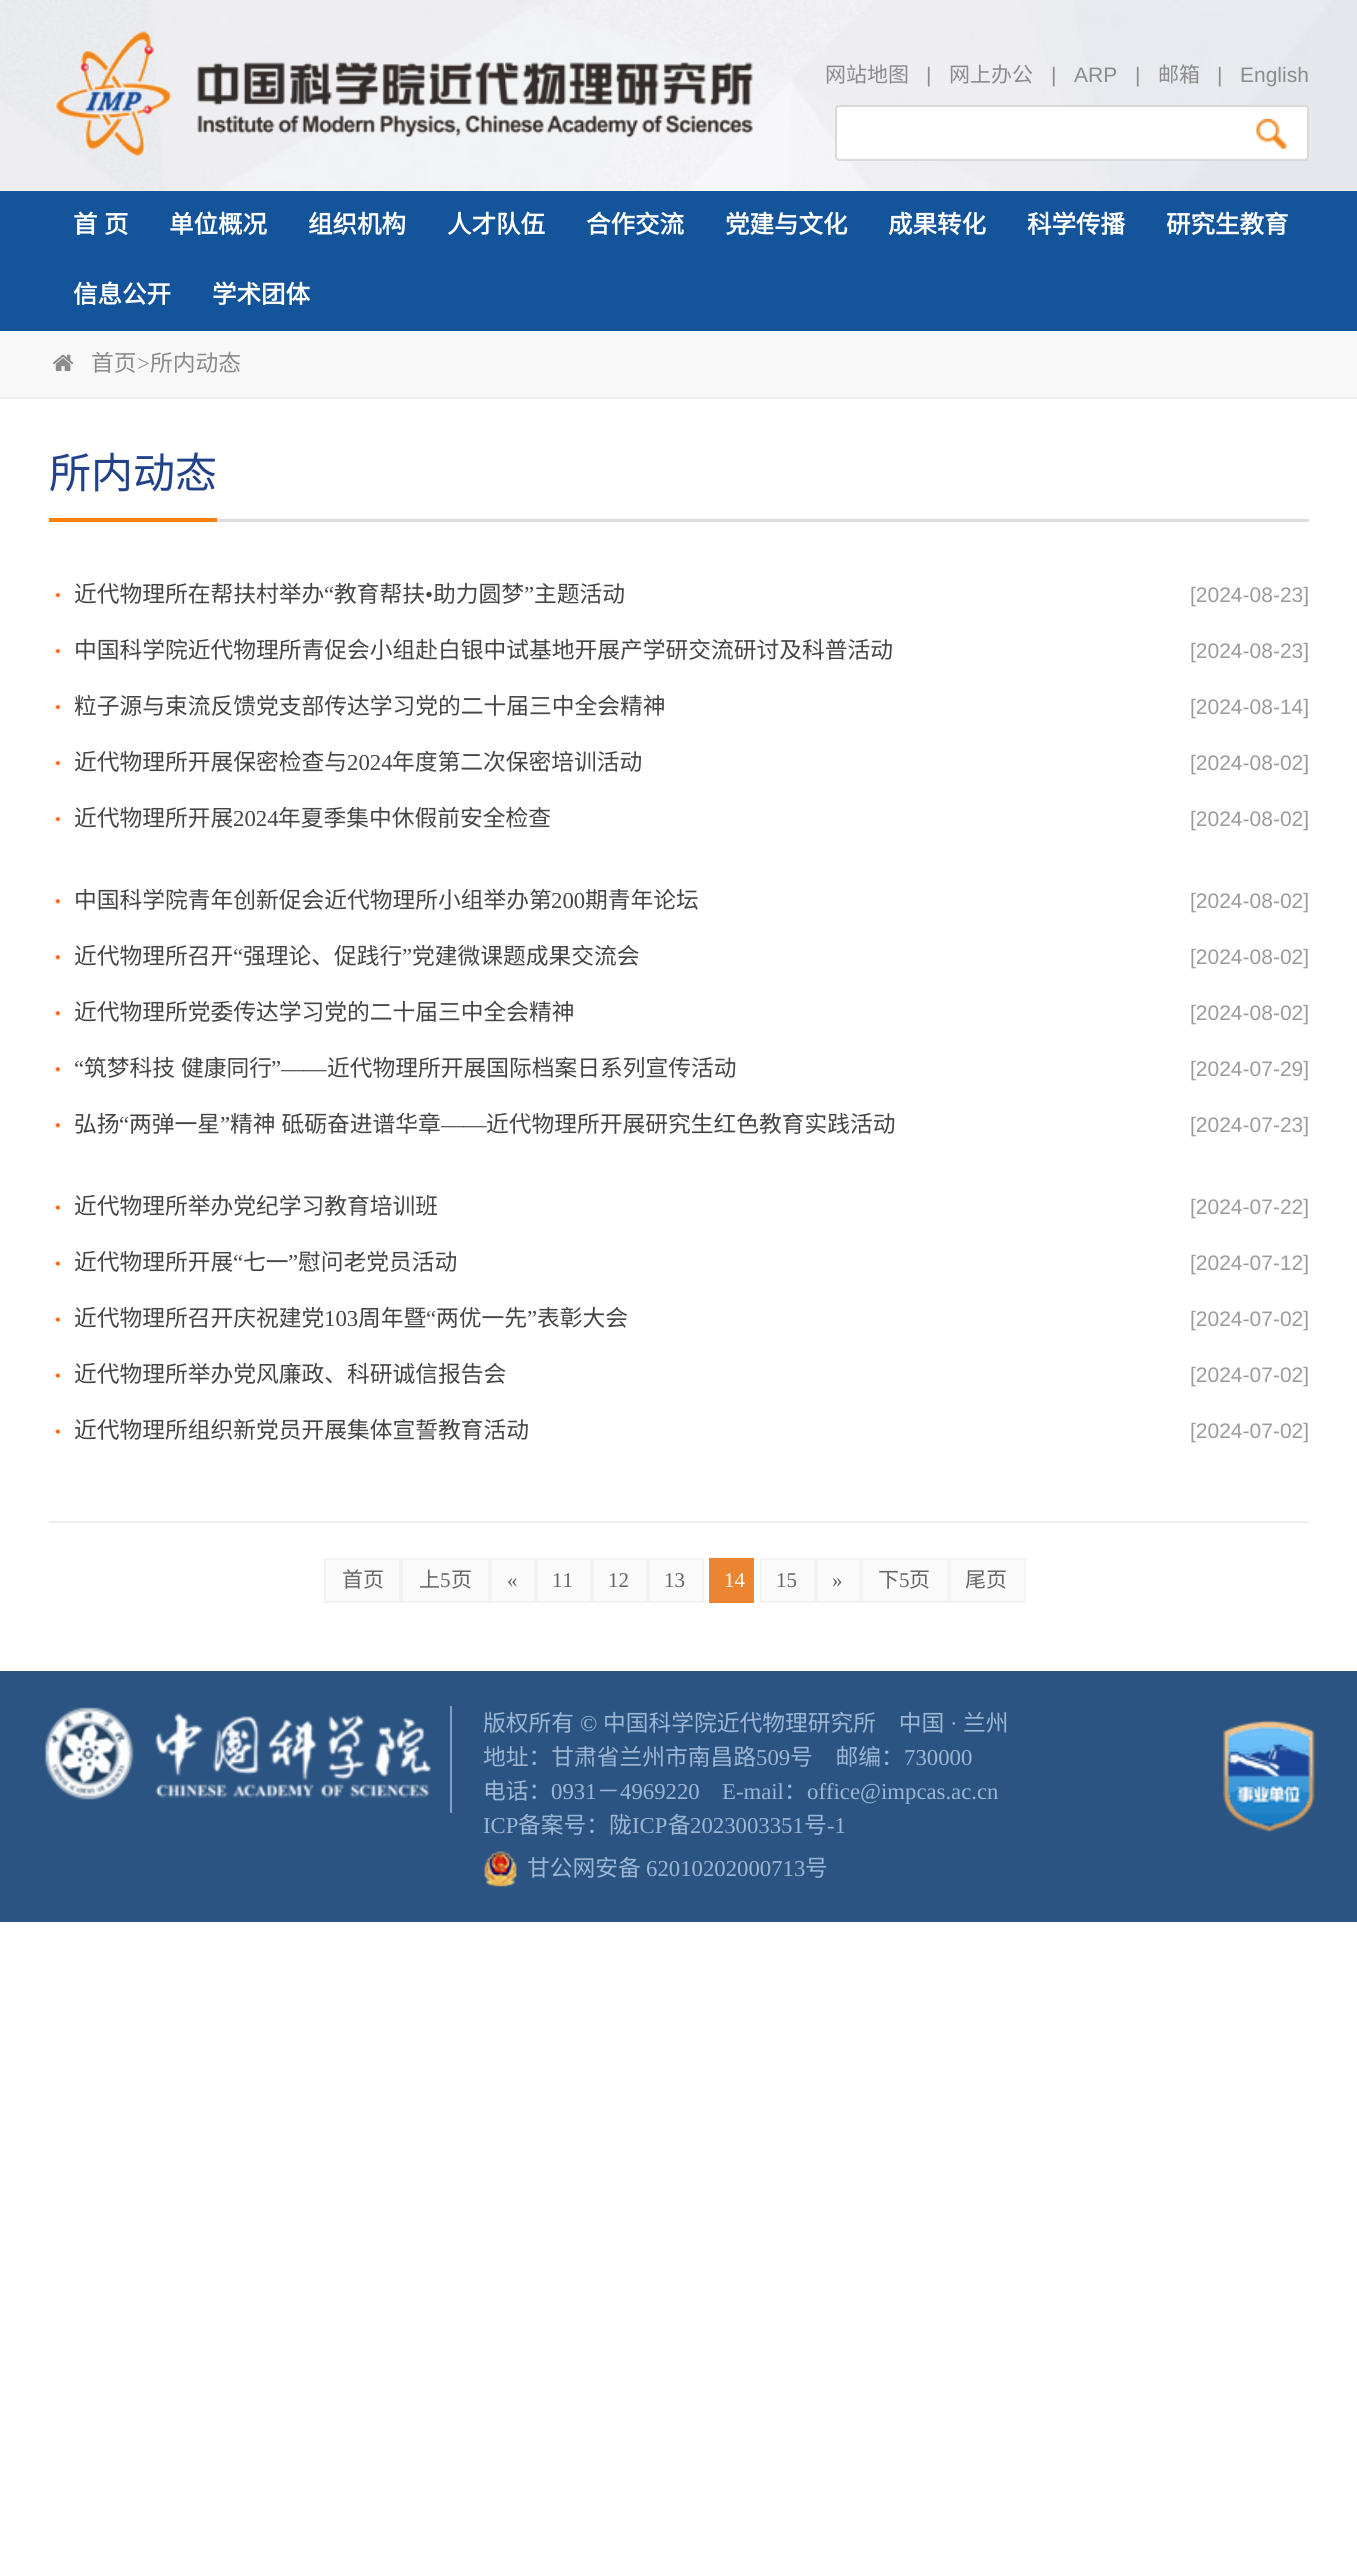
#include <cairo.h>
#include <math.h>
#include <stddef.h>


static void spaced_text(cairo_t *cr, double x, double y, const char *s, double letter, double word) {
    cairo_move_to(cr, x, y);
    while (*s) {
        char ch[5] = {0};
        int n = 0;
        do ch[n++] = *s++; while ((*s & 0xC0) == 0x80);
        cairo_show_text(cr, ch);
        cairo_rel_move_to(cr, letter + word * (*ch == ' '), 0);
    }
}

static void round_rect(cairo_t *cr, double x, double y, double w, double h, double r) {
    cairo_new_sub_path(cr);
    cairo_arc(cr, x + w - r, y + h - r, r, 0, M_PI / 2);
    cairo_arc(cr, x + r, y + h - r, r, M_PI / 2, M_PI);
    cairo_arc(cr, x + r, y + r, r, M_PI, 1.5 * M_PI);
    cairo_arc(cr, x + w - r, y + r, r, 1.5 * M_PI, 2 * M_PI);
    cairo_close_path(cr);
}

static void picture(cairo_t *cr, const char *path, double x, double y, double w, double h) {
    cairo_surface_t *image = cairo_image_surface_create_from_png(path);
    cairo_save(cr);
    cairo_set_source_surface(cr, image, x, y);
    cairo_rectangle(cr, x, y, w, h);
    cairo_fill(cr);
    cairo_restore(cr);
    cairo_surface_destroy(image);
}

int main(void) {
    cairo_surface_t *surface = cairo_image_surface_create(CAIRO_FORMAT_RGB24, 1357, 2551);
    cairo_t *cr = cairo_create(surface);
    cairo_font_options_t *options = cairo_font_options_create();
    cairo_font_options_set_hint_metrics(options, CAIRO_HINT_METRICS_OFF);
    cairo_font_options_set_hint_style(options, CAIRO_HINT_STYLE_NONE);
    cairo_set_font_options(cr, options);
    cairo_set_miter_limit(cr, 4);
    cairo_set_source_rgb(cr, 1, 1, 1);
    cairo_paint(cr);
    picture(cr, "img1.png", 0, 0, 1357, 191);
    picture(cr, "img2.png", 56, 31, 697, 125);
    cairo_select_font_face(cr, "Noto Sans CJK SC", CAIRO_FONT_SLANT_NORMAL, CAIRO_FONT_WEIGHT_NORMAL);
    cairo_set_font_size(cr, 21);
    cairo_set_source_rgb(cr, 0.545, 0.545, 0.545);
    cairo_move_to(cr, 825, 82);
    cairo_show_text(cr, "网站地图");
    cairo_select_font_face(cr, "Liberation Sans", CAIRO_FONT_SLANT_NORMAL, CAIRO_FONT_WEIGHT_NORMAL);
    cairo_move_to(cr, 926, 82);
    cairo_show_text(cr, "|");
    cairo_select_font_face(cr, "Noto Sans CJK SC", CAIRO_FONT_SLANT_NORMAL, CAIRO_FONT_WEIGHT_NORMAL);
    cairo_move_to(cr, 949, 82);
    cairo_show_text(cr, "网上办公");
    cairo_select_font_face(cr, "Liberation Sans", CAIRO_FONT_SLANT_NORMAL, CAIRO_FONT_WEIGHT_NORMAL);
    cairo_move_to(cr, 1051, 82);
    cairo_show_text(cr, "|");
    cairo_move_to(cr, 1074, 82);
    cairo_show_text(cr, "ARP");
    cairo_move_to(cr, 1135, 82);
    cairo_show_text(cr, "|");
    cairo_select_font_face(cr, "Noto Sans CJK SC", CAIRO_FONT_SLANT_NORMAL, CAIRO_FONT_WEIGHT_NORMAL);
    cairo_move_to(cr, 1158, 82);
    cairo_show_text(cr, "邮箱");
    cairo_select_font_face(cr, "Liberation Sans", CAIRO_FONT_SLANT_NORMAL, CAIRO_FONT_WEIGHT_NORMAL);
    cairo_move_to(cr, 1217, 82);
    cairo_show_text(cr, "|");
    cairo_move_to(cr, 1240, 82);
    cairo_show_text(cr, "English");
    cairo_set_source_rgb(cr, 1, 1, 1);
    round_rect(cr, 836, 106, 472, 54, 3);
    cairo_fill_preserve(cr);
    cairo_set_source_rgb(cr, 0.851, 0.851, 0.851);
    cairo_stroke(cr);
    picture(cr, "img3.png", 1256, 119, 31, 30);
    cairo_set_source_rgb(cr, 0.082, 0.329, 0.604);
    cairo_rectangle(cr, 0, 191, 1357, 140);
    cairo_fill(cr);
    cairo_select_font_face(cr, "Noto Sans CJK SC", CAIRO_FONT_SLANT_NORMAL, CAIRO_FONT_WEIGHT_BOLD);
    cairo_set_font_size(cr, 24.5);
    cairo_set_source_rgb(cr, 1, 1, 1);
    spaced_text(cr, 73, 233, "首 页", 0, 1);
    cairo_move_to(cr, 169, 233);
    cairo_show_text(cr, "单位概况");
    cairo_move_to(cr, 308, 233);
    cairo_show_text(cr, "组织机构");
    cairo_move_to(cr, 447, 233);
    cairo_show_text(cr, "人才队伍");
    cairo_move_to(cr, 586, 233);
    cairo_show_text(cr, "合作交流");
    cairo_move_to(cr, 725, 233);
    cairo_show_text(cr, "党建与文化");
    cairo_move_to(cr, 888, 233);
    cairo_show_text(cr, "成果转化");
    cairo_move_to(cr, 1027, 233);
    cairo_show_text(cr, "科学传播");
    cairo_move_to(cr, 1166, 233);
    cairo_show_text(cr, "研究生教育");
    cairo_move_to(cr, 73, 303);
    cairo_show_text(cr, "信息公开");
    cairo_move_to(cr, 212, 303);
    cairo_show_text(cr, "学术团体");
    cairo_set_source_rgb(cr, 0.969, 0.969, 0.969);
    cairo_rectangle(cr, 0, 331, 1357, 66);
    cairo_fill(cr);
    cairo_set_source_rgb(cr, 0.937, 0.937, 0.937);
    cairo_rectangle(cr, 0, 397, 1357, 2);
    cairo_fill(cr);
    picture(cr, "img4.png", 52, 354, 22, 17);
    cairo_select_font_face(cr, "Noto Sans CJK SC", CAIRO_FONT_SLANT_NORMAL, CAIRO_FONT_WEIGHT_NORMAL);
    cairo_set_font_size(cr, 22.75);
    cairo_set_source_rgb(cr, 0.545, 0.545, 0.545);
    cairo_move_to(cr, 91, 371);
    cairo_show_text(cr, "首页");
    cairo_select_font_face(cr, "Liberation Serif", CAIRO_FONT_SLANT_NORMAL, CAIRO_FONT_WEIGHT_NORMAL);
    cairo_move_to(cr, 137, 371);
    cairo_show_text(cr, ">");
    cairo_select_font_face(cr, "Noto Sans CJK SC", CAIRO_FONT_SLANT_NORMAL, CAIRO_FONT_WEIGHT_NORMAL);
    cairo_move_to(cr, 150, 371);
    cairo_show_text(cr, "所内动态");
    cairo_set_source_rgb(cr, 0.867, 0.867, 0.867);
    cairo_rectangle(cr, 217, 519, 1092, 3);
    cairo_fill(cr);
    cairo_set_source_rgb(cr, 1, 0.502, 0);
    cairo_rectangle(cr, 49, 518, 168, 4);
    cairo_fill(cr);
    cairo_set_font_size(cr, 42);
    cairo_set_source_rgb(cr, 0.129, 0.259, 0.537);
    cairo_move_to(cr, 49, 488);
    cairo_show_text(cr, "所内动态");
    picture(cr, "img5.png", 55, 592, 5, 6);
    cairo_set_font_size(cr, 22.75);
    cairo_set_source_rgb(cr, 0.271, 0.271, 0.271);
    cairo_move_to(cr, 74, 602);
    cairo_show_text(cr, "近代物理所在帮扶村举办");
    cairo_select_font_face(cr, "Liberation Serif", CAIRO_FONT_SLANT_NORMAL, CAIRO_FONT_WEIGHT_NORMAL);
    cairo_move_to(cr, 324, 602);
    cairo_show_text(cr, "“");
    cairo_select_font_face(cr, "Noto Sans CJK SC", CAIRO_FONT_SLANT_NORMAL, CAIRO_FONT_WEIGHT_NORMAL);
    cairo_move_to(cr, 334, 602);
    cairo_show_text(cr, "教育帮扶");
    cairo_move_to(cr, 433, 602);
    cairo_show_text(cr, "助力圆梦");
    cairo_select_font_face(cr, "Liberation Serif", CAIRO_FONT_SLANT_NORMAL, CAIRO_FONT_WEIGHT_NORMAL);
    cairo_move_to(cr, 524, 602);
    cairo_show_text(cr, "”");
    cairo_select_font_face(cr, "Noto Sans CJK SC", CAIRO_FONT_SLANT_NORMAL, CAIRO_FONT_WEIGHT_NORMAL);
    cairo_move_to(cr, 534, 602);
    cairo_show_text(cr, "主题活动");
    cairo_select_font_face(cr, "Liberation Serif", CAIRO_FONT_SLANT_NORMAL, CAIRO_FONT_WEIGHT_NORMAL);
    cairo_move_to(cr, 425, 602);
    cairo_show_text(cr, "•");
    cairo_select_font_face(cr, "Liberation Sans", CAIRO_FONT_SLANT_NORMAL, CAIRO_FONT_WEIGHT_NORMAL);
    cairo_set_font_size(cr, 21);
    cairo_set_source_rgb(cr, 0.608, 0.608, 0.608);
    cairo_move_to(cr, 1190, 602);
    cairo_show_text(cr, "[2024-08-23]");
    picture(cr, "img5.png", 55, 648, 5, 6);
    cairo_select_font_face(cr, "Noto Sans CJK SC", CAIRO_FONT_SLANT_NORMAL, CAIRO_FONT_WEIGHT_NORMAL);
    cairo_set_font_size(cr, 22.75);
    cairo_set_source_rgb(cr, 0.271, 0.271, 0.271);
    cairo_move_to(cr, 74, 658);
    cairo_show_text(cr, "中国科学院近代物理所青促会小组赴白银中试基地开展产学研交流研讨及科普活动");
    cairo_select_font_face(cr, "Liberation Sans", CAIRO_FONT_SLANT_NORMAL, CAIRO_FONT_WEIGHT_NORMAL);
    cairo_set_font_size(cr, 21);
    cairo_set_source_rgb(cr, 0.608, 0.608, 0.608);
    cairo_move_to(cr, 1190, 658);
    cairo_show_text(cr, "[2024-08-23]");
    picture(cr, "img5.png", 55, 704, 5, 6);
    cairo_select_font_face(cr, "Noto Sans CJK SC", CAIRO_FONT_SLANT_NORMAL, CAIRO_FONT_WEIGHT_NORMAL);
    cairo_set_font_size(cr, 22.75);
    cairo_set_source_rgb(cr, 0.271, 0.271, 0.271);
    cairo_move_to(cr, 74, 714);
    cairo_show_text(cr, "粒子源与束流反馈党支部传达学习党的二十届三中全会精神");
    cairo_select_font_face(cr, "Liberation Sans", CAIRO_FONT_SLANT_NORMAL, CAIRO_FONT_WEIGHT_NORMAL);
    cairo_set_font_size(cr, 21);
    cairo_set_source_rgb(cr, 0.608, 0.608, 0.608);
    cairo_move_to(cr, 1190, 714);
    cairo_show_text(cr, "[2024-08-14]");
    picture(cr, "img5.png", 55, 760, 5, 6);
    cairo_select_font_face(cr, "Noto Sans CJK SC", CAIRO_FONT_SLANT_NORMAL, CAIRO_FONT_WEIGHT_NORMAL);
    cairo_set_font_size(cr, 22.75);
    cairo_set_source_rgb(cr, 0.271, 0.271, 0.271);
    cairo_move_to(cr, 74, 770);
    cairo_show_text(cr, "近代物理所开展保密检查与");
    cairo_select_font_face(cr, "Liberation Serif", CAIRO_FONT_SLANT_NORMAL, CAIRO_FONT_WEIGHT_NORMAL);
    cairo_move_to(cr, 347, 770);
    cairo_show_text(cr, "2024");
    cairo_select_font_face(cr, "Noto Sans CJK SC", CAIRO_FONT_SLANT_NORMAL, CAIRO_FONT_WEIGHT_NORMAL);
    cairo_move_to(cr, 392, 770);
    cairo_show_text(cr, "年度第二次保密培训活动");
    cairo_select_font_face(cr, "Liberation Sans", CAIRO_FONT_SLANT_NORMAL, CAIRO_FONT_WEIGHT_NORMAL);
    cairo_set_font_size(cr, 21);
    cairo_set_source_rgb(cr, 0.608, 0.608, 0.608);
    cairo_move_to(cr, 1190, 770);
    cairo_show_text(cr, "[2024-08-02]");
    picture(cr, "img5.png", 55, 816, 5, 6);
    cairo_select_font_face(cr, "Noto Sans CJK SC", CAIRO_FONT_SLANT_NORMAL, CAIRO_FONT_WEIGHT_NORMAL);
    cairo_set_font_size(cr, 22.75);
    cairo_set_source_rgb(cr, 0.271, 0.271, 0.271);
    cairo_move_to(cr, 74, 826);
    cairo_show_text(cr, "近代物理所开展");
    cairo_select_font_face(cr, "Liberation Serif", CAIRO_FONT_SLANT_NORMAL, CAIRO_FONT_WEIGHT_NORMAL);
    cairo_move_to(cr, 233, 826);
    cairo_show_text(cr, "2024");
    cairo_select_font_face(cr, "Noto Sans CJK SC", CAIRO_FONT_SLANT_NORMAL, CAIRO_FONT_WEIGHT_NORMAL);
    cairo_move_to(cr, 278, 826);
    cairo_show_text(cr, "年夏季集中休假前安全检查");
    cairo_select_font_face(cr, "Liberation Sans", CAIRO_FONT_SLANT_NORMAL, CAIRO_FONT_WEIGHT_NORMAL);
    cairo_set_font_size(cr, 21);
    cairo_set_source_rgb(cr, 0.608, 0.608, 0.608);
    cairo_move_to(cr, 1190, 826);
    cairo_show_text(cr, "[2024-08-02]");
    picture(cr, "img6.png", 55, 899, 5, 5);
    cairo_select_font_face(cr, "Noto Sans CJK SC", CAIRO_FONT_SLANT_NORMAL, CAIRO_FONT_WEIGHT_NORMAL);
    cairo_set_font_size(cr, 22.75);
    cairo_set_source_rgb(cr, 0.271, 0.271, 0.271);
    cairo_move_to(cr, 74, 908);
    cairo_show_text(cr, "中国科学院青年创新促会近代物理所小组举办第");
    cairo_select_font_face(cr, "Liberation Serif", CAIRO_FONT_SLANT_NORMAL, CAIRO_FONT_WEIGHT_NORMAL);
    cairo_move_to(cr, 551, 908);
    cairo_show_text(cr, "200");
    cairo_select_font_face(cr, "Noto Sans CJK SC", CAIRO_FONT_SLANT_NORMAL, CAIRO_FONT_WEIGHT_NORMAL);
    cairo_move_to(cr, 585, 908);
    cairo_show_text(cr, "期青年论坛");
    cairo_select_font_face(cr, "Liberation Sans", CAIRO_FONT_SLANT_NORMAL, CAIRO_FONT_WEIGHT_NORMAL);
    cairo_set_font_size(cr, 21);
    cairo_set_source_rgb(cr, 0.608, 0.608, 0.608);
    cairo_move_to(cr, 1190, 908);
    cairo_show_text(cr, "[2024-08-02]");
    picture(cr, "img6.png", 55, 955, 5, 5);
    cairo_select_font_face(cr, "Noto Sans CJK SC", CAIRO_FONT_SLANT_NORMAL, CAIRO_FONT_WEIGHT_NORMAL);
    cairo_set_font_size(cr, 22.75);
    cairo_set_source_rgb(cr, 0.271, 0.271, 0.271);
    cairo_move_to(cr, 74, 964);
    cairo_show_text(cr, "近代物理所召开");
    cairo_select_font_face(cr, "Liberation Serif", CAIRO_FONT_SLANT_NORMAL, CAIRO_FONT_WEIGHT_NORMAL);
    cairo_move_to(cr, 233, 964);
    cairo_show_text(cr, "“");
    cairo_select_font_face(cr, "Noto Sans CJK SC", CAIRO_FONT_SLANT_NORMAL, CAIRO_FONT_WEIGHT_NORMAL);
    cairo_move_to(cr, 243, 964);
    cairo_show_text(cr, "强理论、促践行");
    cairo_select_font_face(cr, "Liberation Serif", CAIRO_FONT_SLANT_NORMAL, CAIRO_FONT_WEIGHT_NORMAL);
    cairo_move_to(cr, 402, 964);
    cairo_show_text(cr, "”");
    cairo_select_font_face(cr, "Noto Sans CJK SC", CAIRO_FONT_SLANT_NORMAL, CAIRO_FONT_WEIGHT_NORMAL);
    cairo_move_to(cr, 412, 964);
    cairo_show_text(cr, "党建微课题成果交流会");
    cairo_select_font_face(cr, "Liberation Sans", CAIRO_FONT_SLANT_NORMAL, CAIRO_FONT_WEIGHT_NORMAL);
    cairo_set_font_size(cr, 21);
    cairo_set_source_rgb(cr, 0.608, 0.608, 0.608);
    cairo_move_to(cr, 1190, 964);
    cairo_show_text(cr, "[2024-08-02]");
    picture(cr, "img6.png", 55, 1011, 5, 5);
    cairo_select_font_face(cr, "Noto Sans CJK SC", CAIRO_FONT_SLANT_NORMAL, CAIRO_FONT_WEIGHT_NORMAL);
    cairo_set_font_size(cr, 22.75);
    cairo_set_source_rgb(cr, 0.271, 0.271, 0.271);
    cairo_move_to(cr, 74, 1020);
    cairo_show_text(cr, "近代物理所党委传达学习党的二十届三中全会精神");
    cairo_select_font_face(cr, "Liberation Sans", CAIRO_FONT_SLANT_NORMAL, CAIRO_FONT_WEIGHT_NORMAL);
    cairo_set_font_size(cr, 21);
    cairo_set_source_rgb(cr, 0.608, 0.608, 0.608);
    cairo_move_to(cr, 1190, 1020);
    cairo_show_text(cr, "[2024-08-02]");
    picture(cr, "img6.png", 55, 1067, 5, 5);
    cairo_select_font_face(cr, "Liberation Serif", CAIRO_FONT_SLANT_NORMAL, CAIRO_FONT_WEIGHT_NORMAL);
    cairo_set_font_size(cr, 22.75);
    cairo_set_source_rgb(cr, 0.271, 0.271, 0.271);
    cairo_move_to(cr, 74, 1076);
    cairo_show_text(cr, "“");
    cairo_select_font_face(cr, "Noto Sans CJK SC", CAIRO_FONT_SLANT_NORMAL, CAIRO_FONT_WEIGHT_NORMAL);
    spaced_text(cr, 84, 1076, "筑梦科技 健康同行", 0, 1);
    cairo_select_font_face(cr, "Liberation Serif", CAIRO_FONT_SLANT_NORMAL, CAIRO_FONT_WEIGHT_NORMAL);
    cairo_move_to(cr, 271, 1076);
    cairo_show_text(cr, "”——");
    cairo_select_font_face(cr, "Noto Sans CJK SC", CAIRO_FONT_SLANT_NORMAL, CAIRO_FONT_WEIGHT_NORMAL);
    cairo_move_to(cr, 327, 1076);
    cairo_show_text(cr, "近代物理所开展国际档案日系列宣传活动");
    cairo_select_font_face(cr, "Liberation Sans", CAIRO_FONT_SLANT_NORMAL, CAIRO_FONT_WEIGHT_NORMAL);
    cairo_set_font_size(cr, 21);
    cairo_set_source_rgb(cr, 0.608, 0.608, 0.608);
    cairo_move_to(cr, 1190, 1076);
    cairo_show_text(cr, "[2024-07-29]");
    picture(cr, "img6.png", 55, 1123, 5, 5);
    cairo_select_font_face(cr, "Noto Sans CJK SC", CAIRO_FONT_SLANT_NORMAL, CAIRO_FONT_WEIGHT_NORMAL);
    cairo_set_font_size(cr, 22.75);
    cairo_set_source_rgb(cr, 0.271, 0.271, 0.271);
    cairo_move_to(cr, 74, 1132);
    cairo_show_text(cr, "弘扬");
    cairo_select_font_face(cr, "Liberation Serif", CAIRO_FONT_SLANT_NORMAL, CAIRO_FONT_WEIGHT_NORMAL);
    cairo_move_to(cr, 119, 1132);
    cairo_show_text(cr, "“");
    cairo_select_font_face(cr, "Noto Sans CJK SC", CAIRO_FONT_SLANT_NORMAL, CAIRO_FONT_WEIGHT_NORMAL);
    cairo_move_to(cr, 129, 1132);
    cairo_show_text(cr, "两弹一星");
    cairo_select_font_face(cr, "Liberation Serif", CAIRO_FONT_SLANT_NORMAL, CAIRO_FONT_WEIGHT_NORMAL);
    cairo_move_to(cr, 220, 1132);
    cairo_show_text(cr, "”");
    cairo_select_font_face(cr, "Noto Sans CJK SC", CAIRO_FONT_SLANT_NORMAL, CAIRO_FONT_WEIGHT_NORMAL);
    spaced_text(cr, 230, 1132, "精神 砥砺奋进谱华章", 0, 1);
    cairo_move_to(cr, 486, 1132);
    cairo_show_text(cr, "近代物理所开展研究生红色教育实践活动");
    cairo_select_font_face(cr, "Liberation Serif", CAIRO_FONT_SLANT_NORMAL, CAIRO_FONT_WEIGHT_NORMAL);
    cairo_move_to(cr, 441, 1132);
    cairo_show_text(cr, "——");
    cairo_select_font_face(cr, "Liberation Sans", CAIRO_FONT_SLANT_NORMAL, CAIRO_FONT_WEIGHT_NORMAL);
    cairo_set_font_size(cr, 21);
    cairo_set_source_rgb(cr, 0.608, 0.608, 0.608);
    cairo_move_to(cr, 1190, 1132);
    cairo_show_text(cr, "[2024-07-23]");
    picture(cr, "img7.png", 55, 1205, 5, 5);
    cairo_select_font_face(cr, "Noto Sans CJK SC", CAIRO_FONT_SLANT_NORMAL, CAIRO_FONT_WEIGHT_NORMAL);
    cairo_set_font_size(cr, 22.75);
    cairo_set_source_rgb(cr, 0.271, 0.271, 0.271);
    cairo_move_to(cr, 74, 1214);
    cairo_show_text(cr, "近代物理所举办党纪学习教育培训班");
    cairo_select_font_face(cr, "Liberation Sans", CAIRO_FONT_SLANT_NORMAL, CAIRO_FONT_WEIGHT_NORMAL);
    cairo_set_font_size(cr, 21);
    cairo_set_source_rgb(cr, 0.608, 0.608, 0.608);
    cairo_move_to(cr, 1190, 1214);
    cairo_show_text(cr, "[2024-07-22]");
    picture(cr, "img7.png", 55, 1261, 5, 5);
    cairo_select_font_face(cr, "Noto Sans CJK SC", CAIRO_FONT_SLANT_NORMAL, CAIRO_FONT_WEIGHT_NORMAL);
    cairo_set_font_size(cr, 22.75);
    cairo_set_source_rgb(cr, 0.271, 0.271, 0.271);
    cairo_move_to(cr, 74, 1270);
    cairo_show_text(cr, "近代物理所开展");
    cairo_select_font_face(cr, "Liberation Serif", CAIRO_FONT_SLANT_NORMAL, CAIRO_FONT_WEIGHT_NORMAL);
    cairo_move_to(cr, 233, 1270);
    cairo_show_text(cr, "“");
    cairo_select_font_face(cr, "Noto Sans CJK SC", CAIRO_FONT_SLANT_NORMAL, CAIRO_FONT_WEIGHT_NORMAL);
    cairo_move_to(cr, 243, 1270);
    cairo_show_text(cr, "七一");
    cairo_select_font_face(cr, "Liberation Serif", CAIRO_FONT_SLANT_NORMAL, CAIRO_FONT_WEIGHT_NORMAL);
    cairo_move_to(cr, 288, 1270);
    cairo_show_text(cr, "”");
    cairo_select_font_face(cr, "Noto Sans CJK SC", CAIRO_FONT_SLANT_NORMAL, CAIRO_FONT_WEIGHT_NORMAL);
    cairo_move_to(cr, 298, 1270);
    cairo_show_text(cr, "慰问老党员活动");
    cairo_select_font_face(cr, "Liberation Sans", CAIRO_FONT_SLANT_NORMAL, CAIRO_FONT_WEIGHT_NORMAL);
    cairo_set_font_size(cr, 21);
    cairo_set_source_rgb(cr, 0.608, 0.608, 0.608);
    cairo_move_to(cr, 1190, 1270);
    cairo_show_text(cr, "[2024-07-12]");
    picture(cr, "img7.png", 55, 1317, 5, 5);
    cairo_select_font_face(cr, "Noto Sans CJK SC", CAIRO_FONT_SLANT_NORMAL, CAIRO_FONT_WEIGHT_NORMAL);
    cairo_set_font_size(cr, 22.75);
    cairo_set_source_rgb(cr, 0.271, 0.271, 0.271);
    cairo_move_to(cr, 74, 1326);
    cairo_show_text(cr, "近代物理所召开庆祝建党");
    cairo_select_font_face(cr, "Liberation Serif", CAIRO_FONT_SLANT_NORMAL, CAIRO_FONT_WEIGHT_NORMAL);
    cairo_move_to(cr, 324, 1326);
    cairo_show_text(cr, "103");
    cairo_select_font_face(cr, "Noto Sans CJK SC", CAIRO_FONT_SLANT_NORMAL, CAIRO_FONT_WEIGHT_NORMAL);
    cairo_move_to(cr, 358, 1326);
    cairo_show_text(cr, "周年暨");
    cairo_select_font_face(cr, "Liberation Serif", CAIRO_FONT_SLANT_NORMAL, CAIRO_FONT_WEIGHT_NORMAL);
    cairo_move_to(cr, 426, 1326);
    cairo_show_text(cr, "“");
    cairo_select_font_face(cr, "Noto Sans CJK SC", CAIRO_FONT_SLANT_NORMAL, CAIRO_FONT_WEIGHT_NORMAL);
    cairo_move_to(cr, 436, 1326);
    cairo_show_text(cr, "两优一先");
    cairo_select_font_face(cr, "Liberation Serif", CAIRO_FONT_SLANT_NORMAL, CAIRO_FONT_WEIGHT_NORMAL);
    cairo_move_to(cr, 527, 1326);
    cairo_show_text(cr, "”");
    cairo_select_font_face(cr, "Noto Sans CJK SC", CAIRO_FONT_SLANT_NORMAL, CAIRO_FONT_WEIGHT_NORMAL);
    cairo_move_to(cr, 537, 1326);
    cairo_show_text(cr, "表彰大会");
    cairo_select_font_face(cr, "Liberation Sans", CAIRO_FONT_SLANT_NORMAL, CAIRO_FONT_WEIGHT_NORMAL);
    cairo_set_font_size(cr, 21);
    cairo_set_source_rgb(cr, 0.608, 0.608, 0.608);
    cairo_move_to(cr, 1190, 1326);
    cairo_show_text(cr, "[2024-07-02]");
    picture(cr, "img7.png", 55, 1373, 5, 5);
    cairo_select_font_face(cr, "Noto Sans CJK SC", CAIRO_FONT_SLANT_NORMAL, CAIRO_FONT_WEIGHT_NORMAL);
    cairo_set_font_size(cr, 22.75);
    cairo_set_source_rgb(cr, 0.271, 0.271, 0.271);
    cairo_move_to(cr, 74, 1382);
    cairo_show_text(cr, "近代物理所举办党风廉政、科研诚信报告会");
    cairo_select_font_face(cr, "Liberation Sans", CAIRO_FONT_SLANT_NORMAL, CAIRO_FONT_WEIGHT_NORMAL);
    cairo_set_font_size(cr, 21);
    cairo_set_source_rgb(cr, 0.608, 0.608, 0.608);
    cairo_move_to(cr, 1190, 1382);
    cairo_show_text(cr, "[2024-07-02]");
    picture(cr, "img7.png", 55, 1429, 5, 5);
    cairo_select_font_face(cr, "Noto Sans CJK SC", CAIRO_FONT_SLANT_NORMAL, CAIRO_FONT_WEIGHT_NORMAL);
    cairo_set_font_size(cr, 22.75);
    cairo_set_source_rgb(cr, 0.271, 0.271, 0.271);
    cairo_move_to(cr, 74, 1438);
    cairo_show_text(cr, "近代物理所组织新党员开展集体宣誓教育活动");
    cairo_select_font_face(cr, "Liberation Sans", CAIRO_FONT_SLANT_NORMAL, CAIRO_FONT_WEIGHT_NORMAL);
    cairo_set_font_size(cr, 21);
    cairo_set_source_rgb(cr, 0.608, 0.608, 0.608);
    cairo_move_to(cr, 1190, 1438);
    cairo_show_text(cr, "[2024-07-02]");
    cairo_set_source_rgb(cr, 0.933, 0.933, 0.933);
    cairo_rectangle(cr, 49, 1521, 1260, 2);
    cairo_fill(cr);
    cairo_set_source_rgb(cr, 0.98, 0.98, 0.98);
    cairo_rectangle(cr, 325, 1559, 75, 43);
    cairo_fill_preserve(cr);
    cairo_set_source_rgb(cr, 0.953, 0.953, 0.953);
    cairo_stroke(cr);
    cairo_select_font_face(cr, "Noto Sans CJK SC", CAIRO_FONT_SLANT_NORMAL, CAIRO_FONT_WEIGHT_NORMAL);
    cairo_set_source_rgb(cr, 0.4, 0.4, 0.4);
    cairo_move_to(cr, 342, 1587);
    cairo_show_text(cr, "首页");
    cairo_set_source_rgb(cr, 0.98, 0.98, 0.98);
    cairo_rectangle(cr, 402, 1559, 87, 43);
    cairo_fill_preserve(cr);
    cairo_set_source_rgb(cr, 0.953, 0.953, 0.953);
    cairo_stroke(cr);
    cairo_set_source_rgb(cr, 0.4, 0.4, 0.4);
    cairo_move_to(cr, 419, 1587);
    cairo_show_text(cr, "上");
    cairo_select_font_face(cr, "Liberation Serif", CAIRO_FONT_SLANT_NORMAL, CAIRO_FONT_WEIGHT_NORMAL);
    cairo_move_to(cr, 440, 1587);
    cairo_show_text(cr, "5");
    cairo_select_font_face(cr, "Noto Sans CJK SC", CAIRO_FONT_SLANT_NORMAL, CAIRO_FONT_WEIGHT_NORMAL);
    cairo_move_to(cr, 451, 1587);
    cairo_show_text(cr, "页");
    cairo_set_source_rgb(cr, 0.98, 0.98, 0.98);
    cairo_rectangle(cr, 491, 1559, 44, 43);
    cairo_fill_preserve(cr);
    cairo_set_source_rgb(cr, 0.953, 0.953, 0.953);
    cairo_stroke(cr);
    cairo_select_font_face(cr, "Liberation Serif", CAIRO_FONT_SLANT_NORMAL, CAIRO_FONT_WEIGHT_NORMAL);
    cairo_set_source_rgb(cr, 0.4, 0.4, 0.4);
    cairo_move_to(cr, 507, 1587);
    cairo_show_text(cr, "«");
    cairo_set_source_rgb(cr, 0.98, 0.98, 0.98);
    cairo_rectangle(cr, 537, 1559, 54, 43);
    cairo_fill_preserve(cr);
    cairo_set_source_rgb(cr, 0.953, 0.953, 0.953);
    cairo_stroke(cr);
    cairo_set_source_rgb(cr, 0.4, 0.4, 0.4);
    cairo_move_to(cr, 552, 1587);
    cairo_show_text(cr, "11");
    cairo_set_source_rgb(cr, 0.98, 0.98, 0.98);
    cairo_rectangle(cr, 593, 1559, 54, 43);
    cairo_fill_preserve(cr);
    cairo_set_source_rgb(cr, 0.953, 0.953, 0.953);
    cairo_stroke(cr);
    cairo_set_source_rgb(cr, 0.4, 0.4, 0.4);
    cairo_move_to(cr, 608, 1587);
    cairo_show_text(cr, "12");
    cairo_set_source_rgb(cr, 0.98, 0.98, 0.98);
    cairo_rectangle(cr, 649, 1559, 54, 43);
    cairo_fill_preserve(cr);
    cairo_set_source_rgb(cr, 0.953, 0.953, 0.953);
    cairo_stroke(cr);
    cairo_set_source_rgb(cr, 0.4, 0.4, 0.4);
    cairo_move_to(cr, 664, 1587);
    cairo_show_text(cr, "13");
    cairo_set_source_rgb(cr, 0.925, 0.522, 0.192);
    cairo_rectangle(cr, 709, 1558, 45, 45);
    cairo_fill(cr);
    cairo_set_source_rgb(cr, 1, 1, 1);
    cairo_move_to(cr, 724, 1587);
    cairo_show_text(cr, "14");
    cairo_set_source_rgb(cr, 0.98, 0.98, 0.98);
    cairo_rectangle(cr, 761, 1559, 54, 43);
    cairo_fill_preserve(cr);
    cairo_set_source_rgb(cr, 0.953, 0.953, 0.953);
    cairo_stroke(cr);
    cairo_set_source_rgb(cr, 0.4, 0.4, 0.4);
    cairo_move_to(cr, 776, 1587);
    cairo_show_text(cr, "15");
    cairo_set_source_rgb(cr, 0.98, 0.98, 0.98);
    cairo_rectangle(cr, 817, 1559, 43, 43);
    cairo_fill_preserve(cr);
    cairo_set_source_rgb(cr, 0.953, 0.953, 0.953);
    cairo_stroke(cr);
    cairo_set_source_rgb(cr, 0.4, 0.4, 0.4);
    cairo_move_to(cr, 832, 1587);
    cairo_show_text(cr, "»");
    cairo_set_source_rgb(cr, 0.98, 0.98, 0.98);
    cairo_rectangle(cr, 862, 1559, 86, 43);
    cairo_fill_preserve(cr);
    cairo_set_source_rgb(cr, 0.953, 0.953, 0.953);
    cairo_stroke(cr);
    cairo_select_font_face(cr, "Noto Sans CJK SC", CAIRO_FONT_SLANT_NORMAL, CAIRO_FONT_WEIGHT_NORMAL);
    cairo_set_source_rgb(cr, 0.4, 0.4, 0.4);
    cairo_move_to(cr, 878, 1587);
    cairo_show_text(cr, "下");
    cairo_select_font_face(cr, "Liberation Serif", CAIRO_FONT_SLANT_NORMAL, CAIRO_FONT_WEIGHT_NORMAL);
    cairo_move_to(cr, 899, 1587);
    cairo_show_text(cr, "5");
    cairo_select_font_face(cr, "Noto Sans CJK SC", CAIRO_FONT_SLANT_NORMAL, CAIRO_FONT_WEIGHT_NORMAL);
    cairo_move_to(cr, 909, 1587);
    cairo_show_text(cr, "页");
    cairo_set_source_rgb(cr, 0.98, 0.98, 0.98);
    cairo_rectangle(cr, 950, 1559, 75, 43);
    cairo_fill_preserve(cr);
    cairo_set_source_rgb(cr, 0.953, 0.953, 0.953);
    cairo_stroke(cr);
    cairo_set_source_rgb(cr, 0.4, 0.4, 0.4);
    cairo_move_to(cr, 965, 1587);
    cairo_show_text(cr, "尾页");
    cairo_set_source_rgb(cr, 0.169, 0.329, 0.51);
    cairo_rectangle(cr, 0, 1671, 1357, 251);
    cairo_fill(cr);
    cairo_set_source_rgb(cr, 0.51, 0.624, 0.749);
    cairo_rectangle(cr, 450, 1706, 2, 107);
    cairo_fill(cr);
    picture(cr, "img8.png", 45, 1707, 386, 93);
    cairo_set_font_size(cr, 22.75);
    cairo_set_source_rgb(cr, 0.608, 0.718, 0.835);
    cairo_move_to(cr, 483, 1731);
    cairo_show_text(cr, "版权所有");
    cairo_select_font_face(cr, "Liberation Serif", CAIRO_FONT_SLANT_NORMAL, CAIRO_FONT_WEIGHT_NORMAL);
    cairo_move_to(cr, 580, 1731);
    cairo_show_text(cr, "©");
    cairo_select_font_face(cr, "Noto Sans CJK SC", CAIRO_FONT_SLANT_NORMAL, CAIRO_FONT_WEIGHT_NORMAL);
    cairo_move_to(cr, 603, 1731);
    cairo_show_text(cr, "中国科学院近代物理研究所　中国");
    cairo_select_font_face(cr, "Liberation Serif", CAIRO_FONT_SLANT_NORMAL, CAIRO_FONT_WEIGHT_NORMAL);
    cairo_move_to(cr, 950, 1731);
    cairo_show_text(cr, "·");
    cairo_select_font_face(cr, "Noto Sans CJK SC", CAIRO_FONT_SLANT_NORMAL, CAIRO_FONT_WEIGHT_NORMAL);
    cairo_move_to(cr, 963, 1731);
    cairo_show_text(cr, "兰州");
    cairo_move_to(cr, 483, 1765);
    cairo_show_text(cr, "地址：甘肃省兰州市南昌路");
    cairo_select_font_face(cr, "Liberation Serif", CAIRO_FONT_SLANT_NORMAL, CAIRO_FONT_WEIGHT_NORMAL);
    cairo_move_to(cr, 756, 1765);
    cairo_show_text(cr, "509");
    cairo_select_font_face(cr, "Noto Sans CJK SC", CAIRO_FONT_SLANT_NORMAL, CAIRO_FONT_WEIGHT_NORMAL);
    cairo_move_to(cr, 790, 1765);
    cairo_show_text(cr, "号　邮编：");
    cairo_select_font_face(cr, "Liberation Serif", CAIRO_FONT_SLANT_NORMAL, CAIRO_FONT_WEIGHT_NORMAL);
    cairo_move_to(cr, 904, 1765);
    cairo_show_text(cr, "730000");
    cairo_select_font_face(cr, "Noto Sans CJK SC", CAIRO_FONT_SLANT_NORMAL, CAIRO_FONT_WEIGHT_NORMAL);
    cairo_move_to(cr, 483, 1799);
    cairo_show_text(cr, "电话：");
    cairo_select_font_face(cr, "Liberation Serif", CAIRO_FONT_SLANT_NORMAL, CAIRO_FONT_WEIGHT_NORMAL);
    cairo_move_to(cr, 551, 1799);
    cairo_show_text(cr, "0931");
    cairo_select_font_face(cr, "Noto Sans CJK SC", CAIRO_FONT_SLANT_NORMAL, CAIRO_FONT_WEIGHT_NORMAL);
    cairo_move_to(cr, 597, 1799);
    cairo_show_text(cr, "－");
    cairo_select_font_face(cr, "Liberation Serif", CAIRO_FONT_SLANT_NORMAL, CAIRO_FONT_WEIGHT_NORMAL);
    cairo_move_to(cr, 620, 1799);
    cairo_show_text(cr, "4969220");
    cairo_move_to(cr, 722, 1799);
    cairo_show_text(cr, "E-mail");
    cairo_select_font_face(cr, "Noto Sans CJK SC", CAIRO_FONT_SLANT_NORMAL, CAIRO_FONT_WEIGHT_NORMAL);
    cairo_move_to(cr, 784, 1799);
    cairo_show_text(cr, "：");
    cairo_select_font_face(cr, "Liberation Serif", CAIRO_FONT_SLANT_NORMAL, CAIRO_FONT_WEIGHT_NORMAL);
    cairo_move_to(cr, 807, 1799);
    cairo_show_text(cr, "office@impcas.ac.cn");
    cairo_move_to(cr, 483, 1833);
    cairo_show_text(cr, "ICP");
    cairo_select_font_face(cr, "Noto Sans CJK SC", CAIRO_FONT_SLANT_NORMAL, CAIRO_FONT_WEIGHT_NORMAL);
    cairo_move_to(cr, 518, 1833);
    cairo_show_text(cr, "备案号：陇");
    cairo_select_font_face(cr, "Liberation Serif", CAIRO_FONT_SLANT_NORMAL, CAIRO_FONT_WEIGHT_NORMAL);
    cairo_move_to(cr, 632, 1833);
    cairo_show_text(cr, "ICP");
    cairo_select_font_face(cr, "Noto Sans CJK SC", CAIRO_FONT_SLANT_NORMAL, CAIRO_FONT_WEIGHT_NORMAL);
    cairo_move_to(cr, 668, 1833);
    cairo_show_text(cr, "备");
    cairo_select_font_face(cr, "Liberation Serif", CAIRO_FONT_SLANT_NORMAL, CAIRO_FONT_WEIGHT_NORMAL);
    cairo_move_to(cr, 690, 1833);
    cairo_show_text(cr, "2023003351");
    cairo_select_font_face(cr, "Noto Sans CJK SC", CAIRO_FONT_SLANT_NORMAL, CAIRO_FONT_WEIGHT_NORMAL);
    cairo_move_to(cr, 804, 1833);
    cairo_show_text(cr, "号");
    cairo_select_font_face(cr, "Liberation Serif", CAIRO_FONT_SLANT_NORMAL, CAIRO_FONT_WEIGHT_NORMAL);
    cairo_move_to(cr, 827, 1833);
    cairo_show_text(cr, "-1");
    picture(cr, "img9.png", 484, 1851, 33, 36);
    cairo_select_font_face(cr, "Noto Sans CJK SC", CAIRO_FONT_SLANT_NORMAL, CAIRO_FONT_WEIGHT_NORMAL);
    cairo_move_to(cr, 527, 1876);
    cairo_show_text(cr, "甘公网安备");
    cairo_select_font_face(cr, "Liberation Serif", CAIRO_FONT_SLANT_NORMAL, CAIRO_FONT_WEIGHT_NORMAL);
    cairo_move_to(cr, 646, 1876);
    cairo_show_text(cr, "62010202000713");
    cairo_select_font_face(cr, "Noto Sans CJK SC", CAIRO_FONT_SLANT_NORMAL, CAIRO_FONT_WEIGHT_NORMAL);
    cairo_move_to(cr, 805, 1876);
    cairo_show_text(cr, "号");
    picture(cr, "img10.png", 1222, 1720, 93, 113);
    cairo_surface_write_to_png(surface, "page.png");
    cairo_font_options_destroy(options);
    cairo_destroy(cr);
    cairo_surface_destroy(surface);
    return 0;
}
